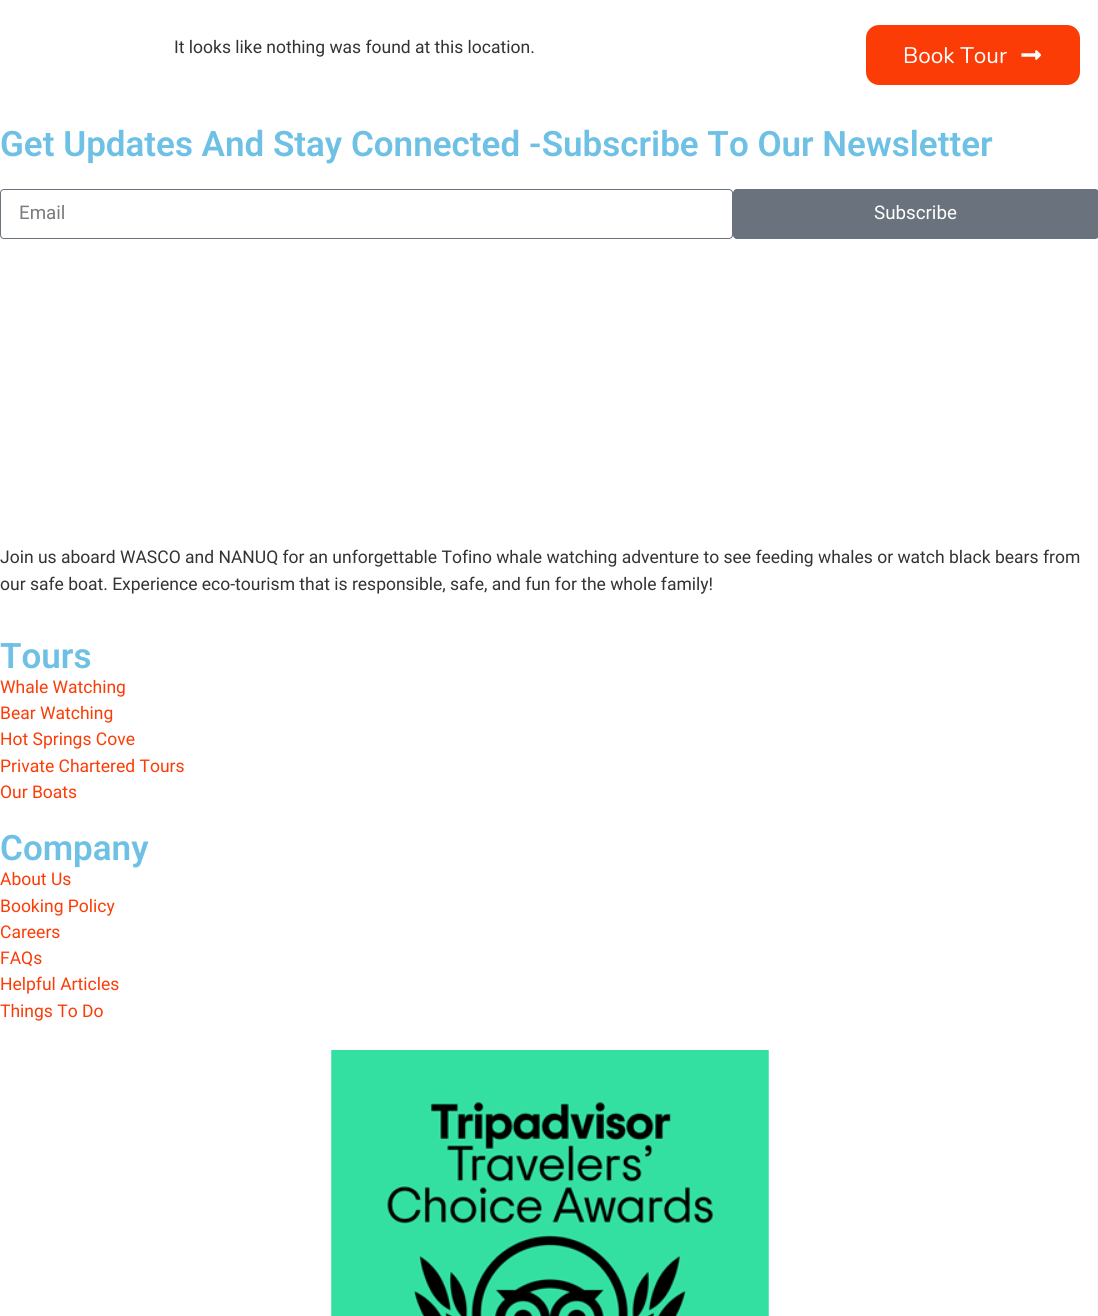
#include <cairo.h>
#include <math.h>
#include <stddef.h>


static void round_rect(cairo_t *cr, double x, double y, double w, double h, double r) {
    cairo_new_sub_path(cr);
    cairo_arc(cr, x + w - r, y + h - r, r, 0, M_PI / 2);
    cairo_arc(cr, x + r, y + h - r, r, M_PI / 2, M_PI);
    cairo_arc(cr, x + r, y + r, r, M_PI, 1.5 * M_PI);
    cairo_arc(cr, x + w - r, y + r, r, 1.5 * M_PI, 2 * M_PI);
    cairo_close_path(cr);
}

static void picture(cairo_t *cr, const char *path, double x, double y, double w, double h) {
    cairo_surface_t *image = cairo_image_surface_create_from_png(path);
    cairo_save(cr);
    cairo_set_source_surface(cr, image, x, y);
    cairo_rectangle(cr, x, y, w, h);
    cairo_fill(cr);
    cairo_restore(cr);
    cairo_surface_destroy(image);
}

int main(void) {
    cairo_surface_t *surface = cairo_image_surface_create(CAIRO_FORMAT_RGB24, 1098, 1316);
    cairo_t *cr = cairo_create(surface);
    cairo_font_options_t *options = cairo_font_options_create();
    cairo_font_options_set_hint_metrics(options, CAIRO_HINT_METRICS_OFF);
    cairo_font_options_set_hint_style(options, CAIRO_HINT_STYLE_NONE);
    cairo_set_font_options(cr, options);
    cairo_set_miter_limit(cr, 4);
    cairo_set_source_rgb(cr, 1, 1, 1);
    cairo_paint(cr);
    cairo_select_font_face(cr, "Roboto", CAIRO_FONT_SLANT_NORMAL, CAIRO_FONT_WEIGHT_NORMAL);
    cairo_set_font_size(cr, 17.5);
    cairo_set_source_rgb(cr, 0.2, 0.2, 0.2);
    cairo_move_to(cr, 174, 53);
    cairo_show_text(cr, "It looks like nothing was found at this location.");
    cairo_set_source_rgb(cr, 0.988, 0.235, 0.027);
    round_rect(cr, 866, 25, 214, 60, 13);
    cairo_fill(cr);
    cairo_select_font_face(cr, "Nunito", CAIRO_FONT_SLANT_NORMAL, CAIRO_FONT_WEIGHT_NORMAL);
    cairo_set_font_size(cr, 22.5);
    cairo_set_source_rgb(cr, 1, 1, 1);
    cairo_move_to(cr, 903, 63);
    cairo_show_text(cr, "Book Tour");
    picture(cr, "img1.png", 1021, 50, 20, 10);
    cairo_select_font_face(cr, "Roboto SemiBold", CAIRO_FONT_SLANT_NORMAL, CAIRO_FONT_WEIGHT_NORMAL);
    cairo_set_font_size(cr, 35);
    cairo_set_source_rgb(cr, 0.431, 0.757, 0.894);
    cairo_move_to(cr, 0, 156);
    cairo_show_text(cr, "Get Updates And Stay Connected -Subscribe To Our Newsletter");
    round_rect(cr, 0.5, 189.5, 732, 49, 3.5);
    cairo_set_source_rgb(cr, 0.412, 0.447, 0.49);
    cairo_set_line_width(cr, 1);
    cairo_stroke(cr);
    cairo_select_font_face(cr, "Roboto", CAIRO_FONT_SLANT_NORMAL, CAIRO_FONT_WEIGHT_NORMAL);
    cairo_set_font_size(cr, 18.75);
    cairo_set_source_rgb(cr, 0.475, 0.478, 0.486);
    cairo_move_to(cr, 19, 219);
    cairo_show_text(cr, "Email");
    cairo_set_source_rgb(cr, 0.412, 0.447, 0.49);
    round_rect(cr, 733, 189, 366, 50, 4);
    cairo_fill(cr);
    cairo_set_source_rgb(cr, 1, 1, 1);
    cairo_move_to(cr, 874, 219);
    cairo_show_text(cr, "Subscribe");
    cairo_set_font_size(cr, 17.5);
    cairo_set_source_rgb(cr, 0.2, 0.2, 0.2);
    cairo_move_to(cr, 0, 563);
    cairo_show_text(cr, "Join us aboard WASCO and NANUQ for an unforgettable Tofino whale watching adventure to see feeding whales or watch black bears from");
    cairo_move_to(cr, 0, 590);
    cairo_show_text(cr, "our safe boat. Experience eco-tourism that is responsible, safe, and fun for the whole family!");
    cairo_select_font_face(cr, "Roboto SemiBold", CAIRO_FONT_SLANT_NORMAL, CAIRO_FONT_WEIGHT_NORMAL);
    cairo_set_font_size(cr, 35);
    cairo_set_source_rgb(cr, 0.431, 0.757, 0.894);
    cairo_move_to(cr, 0, 668);
    cairo_show_text(cr, "Tours");
    cairo_select_font_face(cr, "Roboto", CAIRO_FONT_SLANT_NORMAL, CAIRO_FONT_WEIGHT_NORMAL);
    cairo_set_font_size(cr, 17.5);
    cairo_set_source_rgb(cr, 0.988, 0.235, 0.027);
    cairo_move_to(cr, 0, 693);
    cairo_show_text(cr, "Whale Watching");
    cairo_move_to(cr, 0, 719);
    cairo_show_text(cr, "Bear Watching");
    cairo_move_to(cr, 0, 745);
    cairo_show_text(cr, "Hot Springs Cove");
    cairo_move_to(cr, 0, 772);
    cairo_show_text(cr, "Private Chartered Tours");
    cairo_move_to(cr, 0, 798);
    cairo_show_text(cr, "Our Boats");
    cairo_select_font_face(cr, "Roboto SemiBold", CAIRO_FONT_SLANT_NORMAL, CAIRO_FONT_WEIGHT_NORMAL);
    cairo_set_font_size(cr, 35);
    cairo_set_source_rgb(cr, 0.431, 0.757, 0.894);
    cairo_move_to(cr, 0, 860);
    cairo_show_text(cr, "Company");
    cairo_select_font_face(cr, "Roboto", CAIRO_FONT_SLANT_NORMAL, CAIRO_FONT_WEIGHT_NORMAL);
    cairo_set_font_size(cr, 17.5);
    cairo_set_source_rgb(cr, 0.988, 0.235, 0.027);
    cairo_move_to(cr, 0, 885);
    cairo_show_text(cr, "About Us");
    cairo_move_to(cr, 0, 912);
    cairo_show_text(cr, "Booking Policy");
    cairo_move_to(cr, 0, 938);
    cairo_show_text(cr, "Careers");
    cairo_move_to(cr, 0, 964);
    cairo_show_text(cr, "FAQs");
    cairo_move_to(cr, 0, 990);
    cairo_show_text(cr, "Helpful Articles");
    cairo_move_to(cr, 0, 1017);
    cairo_show_text(cr, "Things To Do");
    picture(cr, "img2.png", 331, 1050, 438, 266);
    cairo_surface_write_to_png(surface, "page.png");
    cairo_font_options_destroy(options);
    cairo_destroy(cr);
    cairo_surface_destroy(surface);
    return 0;
}
